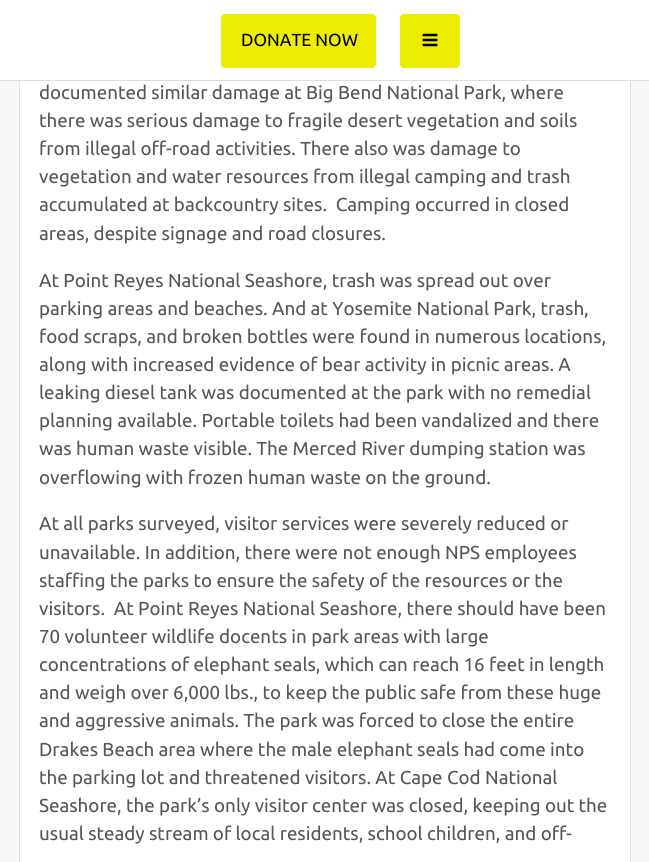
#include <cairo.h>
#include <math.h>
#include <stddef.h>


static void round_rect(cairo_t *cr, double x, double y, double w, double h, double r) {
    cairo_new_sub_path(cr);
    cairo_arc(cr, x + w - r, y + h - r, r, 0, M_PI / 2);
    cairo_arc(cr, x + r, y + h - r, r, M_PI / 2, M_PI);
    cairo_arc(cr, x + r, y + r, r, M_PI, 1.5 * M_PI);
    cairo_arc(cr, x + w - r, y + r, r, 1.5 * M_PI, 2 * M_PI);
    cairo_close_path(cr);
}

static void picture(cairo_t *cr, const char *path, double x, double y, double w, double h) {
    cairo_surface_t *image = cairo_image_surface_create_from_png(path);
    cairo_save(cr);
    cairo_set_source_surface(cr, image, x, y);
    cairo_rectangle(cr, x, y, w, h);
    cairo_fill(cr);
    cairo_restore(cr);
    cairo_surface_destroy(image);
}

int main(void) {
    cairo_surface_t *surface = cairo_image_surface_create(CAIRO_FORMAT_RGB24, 649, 862);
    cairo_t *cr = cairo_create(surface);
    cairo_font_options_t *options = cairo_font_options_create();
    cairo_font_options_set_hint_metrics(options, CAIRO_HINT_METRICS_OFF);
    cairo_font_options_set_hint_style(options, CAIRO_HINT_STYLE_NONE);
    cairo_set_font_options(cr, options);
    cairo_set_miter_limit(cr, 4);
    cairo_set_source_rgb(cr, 0.969, 0.969, 0.969);
    cairo_paint(cr);
    cairo_set_source_rgb(cr, 1, 1, 1);
    cairo_rectangle(cr, 20, 81, 610, 781);
    cairo_fill(cr);
    cairo_rectangle(cr, 19.5, -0.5, 611, 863);
    cairo_set_source_rgb(cr, 0.882, 0.882, 0.882);
    cairo_set_line_width(cr, 1);
    cairo_stroke(cr);
    cairo_set_source_rgb(cr, 1, 1, 1);
    cairo_rectangle(cr, 0, 0, 649, 80);
    cairo_fill(cr);
    cairo_set_source_rgb(cr, 0.871, 0.871, 0.871);
    cairo_rectangle(cr, 0, 80, 649, 1);
    cairo_fill(cr);
    cairo_set_source_rgb(cr, 0.929, 0.929, 0.016);
    round_rect(cr, 221, 14, 155, 54, 4);
    cairo_fill(cr);
    cairo_select_font_face(cr, "Ubuntu", CAIRO_FONT_SLANT_NORMAL, CAIRO_FONT_WEIGHT_NORMAL);
    cairo_set_font_size(cr, 17.5);
    cairo_set_source_rgb(cr, 0, 0, 0);
    cairo_move_to(cr, 241, 46);
    cairo_show_text(cr, "DONATE NOW");
    cairo_set_source_rgb(cr, 0.929, 0.929, 0.016);
    round_rect(cr, 400, 14, 60, 54, 4);
    cairo_fill(cr);
    picture(cr, "img1.png", 422, 33, 16, 14);
    cairo_set_font_size(cr, 18.75);
    cairo_set_source_rgb(cr, 0.337, 0.337, 0.337);
    cairo_move_to(cr, 39, 99);
    cairo_show_text(cr, "documented similar damage at Big Bend National Park, where");
    cairo_move_to(cr, 39, 127);
    cairo_show_text(cr, "there was serious damage to fragile desert vegetation and soils");
    cairo_move_to(cr, 39, 155);
    cairo_show_text(cr, "from illegal off-road activities. There also was damage to");
    cairo_move_to(cr, 39, 183);
    cairo_show_text(cr, "vegetation and water resources from illegal camping and trash");
    cairo_move_to(cr, 39, 211);
    cairo_show_text(cr, "accumulated at backcountry sites.  Camping occurred in closed");
    cairo_move_to(cr, 39, 240);
    cairo_show_text(cr, "areas, despite signage and road closures.");
    cairo_move_to(cr, 39, 287);
    cairo_show_text(cr, "At Point Reyes National Seashore, trash was spread out over");
    cairo_move_to(cr, 39, 315);
    cairo_show_text(cr, "parking areas and beaches. And at Yosemite National Park, trash,");
    cairo_move_to(cr, 39, 343);
    cairo_show_text(cr, "food scraps, and broken bottles were found in numerous locations,");
    cairo_move_to(cr, 39, 371);
    cairo_show_text(cr, "along with increased evidence of bear activity in picnic areas. A");
    cairo_move_to(cr, 39, 399);
    cairo_show_text(cr, "leaking diesel tank was documented at the park with no remedial");
    cairo_move_to(cr, 39, 427);
    cairo_show_text(cr, "planning available. Portable toilets had been vandalized and there");
    cairo_move_to(cr, 39, 455);
    cairo_show_text(cr, "was human waste visible. The Merced River dumping station was");
    cairo_move_to(cr, 39, 484);
    cairo_show_text(cr, "overflowing with frozen human waste on the ground.");
    cairo_move_to(cr, 39, 530);
    cairo_show_text(cr, "At all parks surveyed, visitor services were severely reduced or");
    cairo_move_to(cr, 39, 559);
    cairo_show_text(cr, "unavailable. In addition, there were not enough NPS employees");
    cairo_move_to(cr, 39, 587);
    cairo_show_text(cr, "staffing the parks to ensure the safety of the resources or the");
    cairo_move_to(cr, 39, 615);
    cairo_show_text(cr, "visitors.  At Point Reyes National Seashore, there should have been");
    cairo_move_to(cr, 39, 643);
    cairo_show_text(cr, "70 volunteer wildlife docents in park areas with large");
    cairo_move_to(cr, 39, 671);
    cairo_show_text(cr, "concentrations of elephant seals, which can reach 16 feet in length");
    cairo_move_to(cr, 39, 699);
    cairo_show_text(cr, "and weigh over 6,000 lbs., to keep the public safe from these huge");
    cairo_move_to(cr, 39, 727);
    cairo_show_text(cr, "and aggressive animals. The park was forced to close the entire");
    cairo_move_to(cr, 39, 756);
    cairo_show_text(cr, "Drakes Beach area where the male elephant seals had come into");
    cairo_move_to(cr, 39, 784);
    cairo_show_text(cr, "the parking lot and threatened visitors. At Cape Cod National");
    cairo_move_to(cr, 39, 812);
    cairo_show_text(cr, "Seashore, the park’s only visitor center was closed, keeping out the");
    cairo_move_to(cr, 39, 840);
    cairo_show_text(cr, "usual steady stream of local residents, school children, and off-");
    cairo_surface_write_to_png(surface, "page.png");
    cairo_font_options_destroy(options);
    cairo_destroy(cr);
    cairo_surface_destroy(surface);
    return 0;
}
